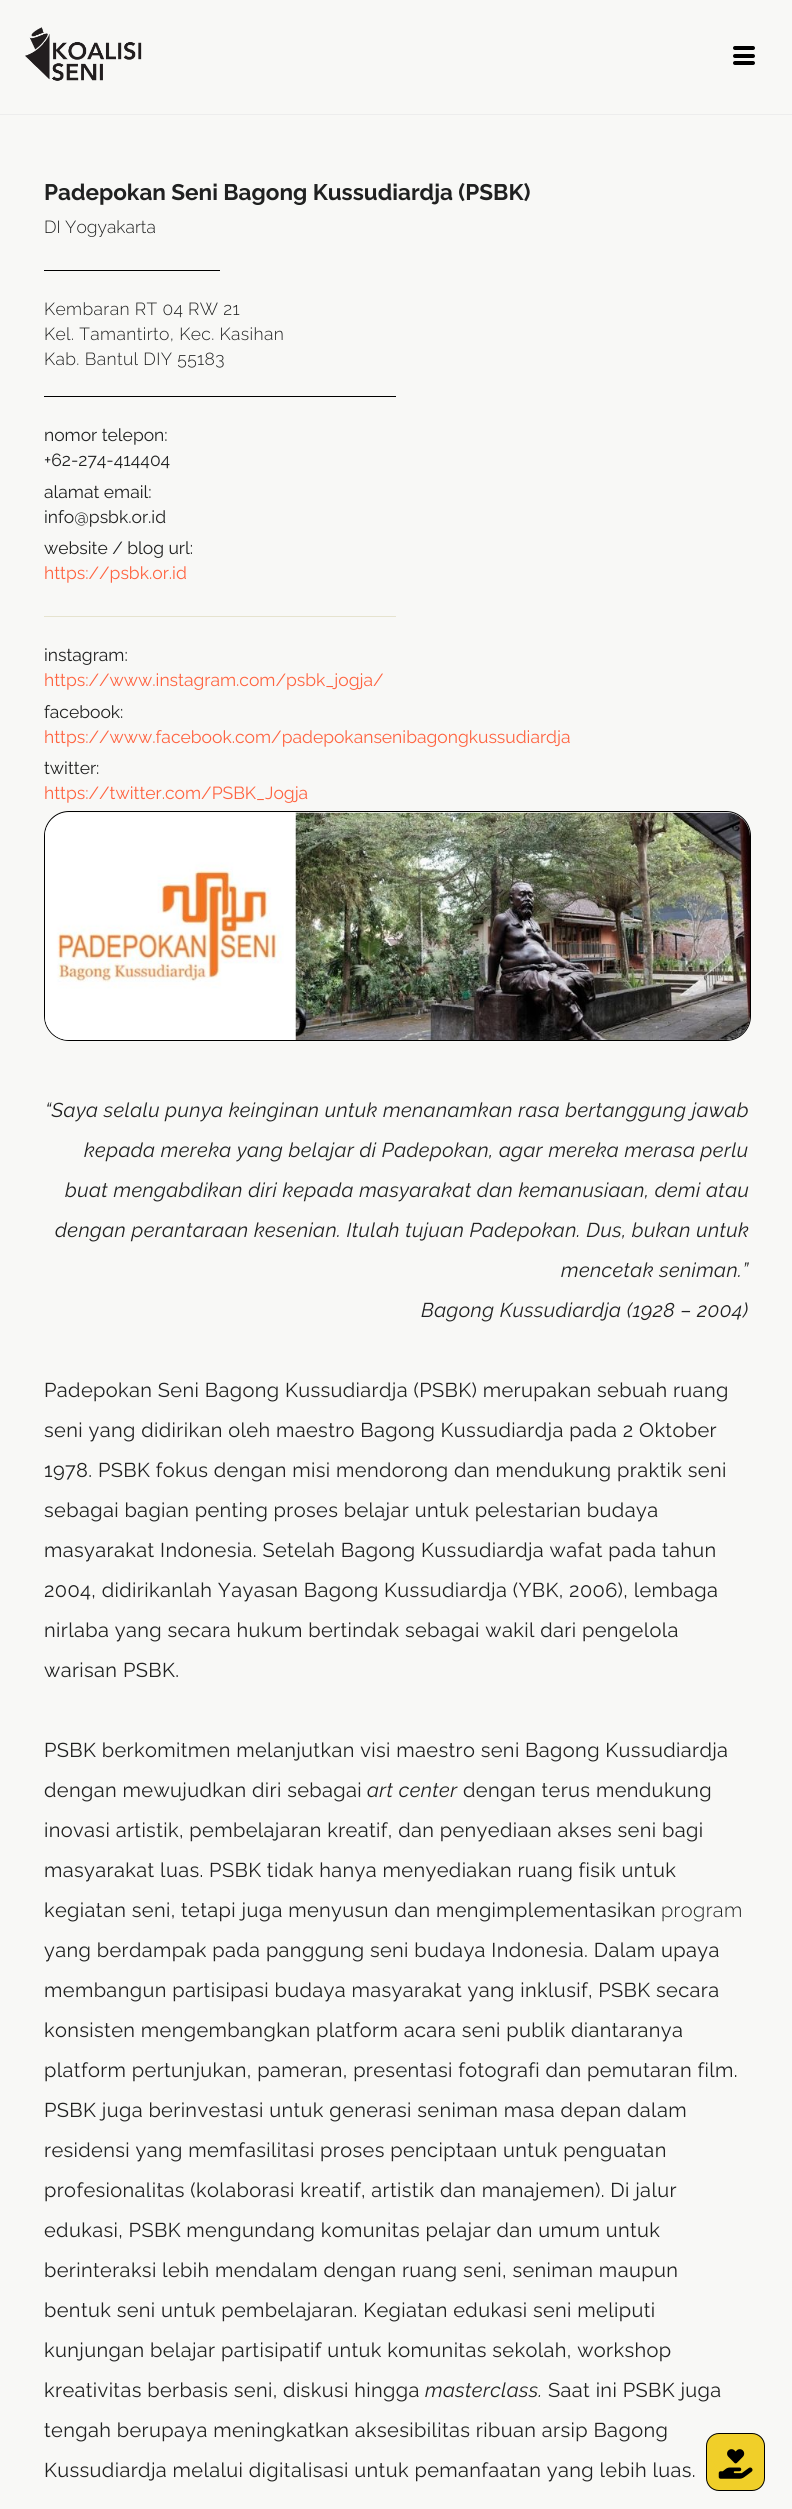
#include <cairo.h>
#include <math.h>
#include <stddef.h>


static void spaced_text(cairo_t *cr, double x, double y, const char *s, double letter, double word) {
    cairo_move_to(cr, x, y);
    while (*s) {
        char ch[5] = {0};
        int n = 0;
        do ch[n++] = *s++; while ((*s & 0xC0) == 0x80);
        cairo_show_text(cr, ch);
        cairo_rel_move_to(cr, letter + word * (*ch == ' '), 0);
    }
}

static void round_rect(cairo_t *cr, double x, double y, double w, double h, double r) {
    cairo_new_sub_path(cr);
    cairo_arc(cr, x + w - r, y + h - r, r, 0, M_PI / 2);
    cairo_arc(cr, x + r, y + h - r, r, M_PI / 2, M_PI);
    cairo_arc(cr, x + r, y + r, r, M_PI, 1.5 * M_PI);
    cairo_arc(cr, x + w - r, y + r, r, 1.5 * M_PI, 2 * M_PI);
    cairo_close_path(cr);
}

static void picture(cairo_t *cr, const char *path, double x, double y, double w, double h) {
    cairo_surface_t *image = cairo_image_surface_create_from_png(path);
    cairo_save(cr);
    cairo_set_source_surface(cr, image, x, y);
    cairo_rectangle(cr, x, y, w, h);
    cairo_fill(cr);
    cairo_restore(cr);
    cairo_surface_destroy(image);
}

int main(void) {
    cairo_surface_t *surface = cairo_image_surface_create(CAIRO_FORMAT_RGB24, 792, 2509);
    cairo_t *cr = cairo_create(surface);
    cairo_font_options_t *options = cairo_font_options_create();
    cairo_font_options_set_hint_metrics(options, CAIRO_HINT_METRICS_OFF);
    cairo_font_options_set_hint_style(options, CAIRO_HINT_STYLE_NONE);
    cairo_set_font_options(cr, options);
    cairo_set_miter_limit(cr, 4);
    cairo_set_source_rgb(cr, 0.969, 0.969, 0.961);
    cairo_paint(cr);
    cairo_set_source_rgb(cr, 0.929, 0.929, 0.929);
    cairo_rectangle(cr, 0, 114, 792, 1);
    cairo_fill(cr);
    picture(cr, "img1.png", 25, 27, 117, 54);
    cairo_set_source_rgb(cr, 0, 0, 0);
    round_rect(cr, 733, 46, 22, 4, 2);
    cairo_fill(cr);
    round_rect(cr, 733, 54, 22, 4, 2);
    cairo_fill(cr);
    round_rect(cr, 733, 61, 22, 4, 2);
    cairo_fill(cr);
    cairo_select_font_face(cr, "Raleway", CAIRO_FONT_SLANT_NORMAL, CAIRO_FONT_WEIGHT_BOLD);
    cairo_set_font_size(cr, 22.5);
    cairo_set_source_rgb(cr, 0.125, 0.129, 0.129);
    cairo_move_to(cr, 44, 200);
    cairo_show_text(cr, "Padepokan Seni Bagong Kussudiardja (PSBK)");
    cairo_select_font_face(cr, "Raleway Light", CAIRO_FONT_SLANT_NORMAL, CAIRO_FONT_WEIGHT_NORMAL);
    cairo_set_font_size(cr, 17.5);
    cairo_move_to(cr, 44, 233);
    cairo_show_text(cr, "DI Yogyakarta");
    cairo_set_source_rgb(cr, 0, 0, 0);
    cairo_rectangle(cr, 44, 270, 176, 1);
    cairo_fill(cr);
    cairo_set_source_rgb(cr, 0.125, 0.129, 0.129);
    spaced_text(cr, 44, 315, "Kembaran RT 04 RW 21", 0.38, 0);
    spaced_text(cr, 44, 340, "Kel. Tamantirto, Kec. Kasihan", 0.38, 0);
    spaced_text(cr, 44, 365, "Kab. Bantul DIY 55183", 0.38, 0);
    cairo_set_source_rgb(cr, 0, 0, 0);
    cairo_rectangle(cr, 44, 396, 352, 1);
    cairo_fill(cr);
    cairo_select_font_face(cr, "Raleway", CAIRO_FONT_SLANT_NORMAL, CAIRO_FONT_WEIGHT_NORMAL);
    cairo_set_source_rgb(cr, 0.125, 0.129, 0.129);
    cairo_move_to(cr, 44, 441);
    cairo_show_text(cr, "nomor telepon:");
    cairo_move_to(cr, 44, 466);
    cairo_show_text(cr, "+62-274-414404");
    cairo_move_to(cr, 44, 498);
    cairo_show_text(cr, "alamat email:");
    cairo_move_to(cr, 44, 523);
    cairo_show_text(cr, "info@psbk.or.id");
    cairo_move_to(cr, 44, 554);
    cairo_show_text(cr, "website / blog url:");
    cairo_set_source_rgb(cr, 1, 0.388, 0.251);
    cairo_move_to(cr, 44, 579);
    cairo_show_text(cr, "https://psbk.or.id");
    cairo_set_source_rgb(cr, 0.902, 0.89, 0.812);
    cairo_rectangle(cr, 44, 616, 352, 1);
    cairo_fill(cr);
    cairo_set_source_rgb(cr, 0.125, 0.129, 0.129);
    cairo_move_to(cr, 44, 661);
    cairo_show_text(cr, "instagram:");
    cairo_set_source_rgb(cr, 1, 0.388, 0.251);
    cairo_move_to(cr, 44, 686);
    cairo_show_text(cr, "https://www.instagram.com/psbk_jogja/");
    cairo_set_source_rgb(cr, 0.125, 0.129, 0.129);
    cairo_move_to(cr, 44, 718);
    cairo_show_text(cr, "facebook:");
    cairo_set_source_rgb(cr, 1, 0.388, 0.251);
    cairo_move_to(cr, 44, 743);
    cairo_show_text(cr, "https://www.facebook.com/padepokansenibagongkussudiardja");
    cairo_set_source_rgb(cr, 0.125, 0.129, 0.129);
    cairo_move_to(cr, 44, 774);
    cairo_show_text(cr, "twitter:");
    cairo_set_source_rgb(cr, 1, 0.388, 0.251);
    cairo_move_to(cr, 44, 799);
    cairo_show_text(cr, "https://twitter.com/PSBK_Jogja");
    round_rect(cr, 44.5, 811.5, 706, 229, 24.5);
    cairo_set_source_rgb(cr, 0, 0, 0);
    cairo_set_line_width(cr, 1);
    cairo_stroke(cr);
    picture(cr, "img2.png", 45, 812, 705, 228);
    cairo_select_font_face(cr, "Raleway", CAIRO_FONT_SLANT_ITALIC, CAIRO_FONT_WEIGHT_NORMAL);
    cairo_set_font_size(cr, 20);
    cairo_set_source_rgb(cr, 0.125, 0.129, 0.129);
    spaced_text(cr, 45, 1117, "“Saya selalu punya keinginan untuk menanamkan rasa bertanggung jawab", 0.38, 0);
    spaced_text(cr, 84, 1157, "kepada mereka yang belajar di Padepokan, agar mereka merasa perlu", 0.38, 0);
    spaced_text(cr, 65, 1197, "buat mengabdikan diri kepada masyarakat dan kemanusiaan, demi atau", 0.38, 0);
    spaced_text(cr, 55, 1237, "dengan perantaraan kesenian. Itulah tujuan Padepokan. Dus, bukan untuk", 0.38, 0);
    spaced_text(cr, 561, 1277, "mencetak seniman.”", 0.38, 0);
    spaced_text(cr, 421, 1317, "Bagong Kussudiardja (1928 – 2004)", 0.38, 0);
    cairo_select_font_face(cr, "Raleway", CAIRO_FONT_SLANT_NORMAL, CAIRO_FONT_WEIGHT_NORMAL);
    spaced_text(cr, 44, 1397, "Padepokan Seni Bagong Kussudiardja (PSBK) merupakan sebuah ruang", 0.38, 0);
    spaced_text(cr, 44, 1437, "seni yang didirikan oleh maestro Bagong Kussudiardja pada 2 Oktober", 0.38, 0);
    spaced_text(cr, 44, 1477, "1978. PSBK fokus dengan misi mendorong dan mendukung praktik seni", 0.38, 0);
    spaced_text(cr, 44, 1517, "sebagai bagian penting proses belajar untuk pelestarian budaya", 0.38, 0);
    spaced_text(cr, 44, 1557, "masyarakat Indonesia. Setelah Bagong Kussudiardja wafat pada tahun", 0.38, 0);
    spaced_text(cr, 44, 1597, "2004, didirikanlah Yayasan Bagong Kussudiardja (YBK, 2006), lembaga", 0.38, 0);
    spaced_text(cr, 44, 1637, "nirlaba yang secara hukum bertindak sebagai wakil dari pengelola", 0.38, 0);
    spaced_text(cr, 44, 1677, "warisan PSBK.", 0.38, 0);
    spaced_text(cr, 44, 1757, "PSBK berkomitmen melanjutkan visi maestro seni Bagong Kussudiardja", 0.38, 0);
    spaced_text(cr, 44, 1797, "dengan mewujudkan diri sebagai", 0.38, 0);
    cairo_select_font_face(cr, "Raleway", CAIRO_FONT_SLANT_ITALIC, CAIRO_FONT_WEIGHT_NORMAL);
    spaced_text(cr, 367, 1797, "art center", 0.38, 0);
    cairo_select_font_face(cr, "Raleway", CAIRO_FONT_SLANT_NORMAL, CAIRO_FONT_WEIGHT_NORMAL);
    spaced_text(cr, 463, 1797, "dengan terus mendukung", 0.38, 0);
    spaced_text(cr, 44, 1837, "inovasi artistik, pembelajaran kreatif, dan penyediaan akses seni bagi", 0.38, 0);
    spaced_text(cr, 44, 1877, "masyarakat luas. PSBK tidak hanya menyediakan ruang fisik untuk", 0.38, 0);
    spaced_text(cr, 44, 1917, "kegiatan seni, tetapi juga menyusun dan mengimplementasikan", 0.38, 0);
    cairo_select_font_face(cr, "Raleway Light", CAIRO_FONT_SLANT_NORMAL, CAIRO_FONT_WEIGHT_NORMAL);
    spaced_text(cr, 661, 1917, "program", 0.38, 0);
    cairo_select_font_face(cr, "Raleway", CAIRO_FONT_SLANT_NORMAL, CAIRO_FONT_WEIGHT_NORMAL);
    spaced_text(cr, 44, 1957, "yang berdampak pada panggung seni budaya Indonesia. Dalam upaya", 0.38, 0);
    spaced_text(cr, 44, 1997, "membangun partisipasi budaya masyarakat yang inklusif, PSBK secara", 0.38, 0);
    spaced_text(cr, 44, 2037, "konsisten mengembangkan platform acara seni publik diantaranya", 0.38, 0);
    spaced_text(cr, 44, 2077, "platform pertunjukan, pameran, presentasi fotografi dan pemutaran film.", 0.38, 0);
    spaced_text(cr, 44, 2117, "PSBK juga berinvestasi untuk generasi seniman masa depan dalam", 0.38, 0);
    spaced_text(cr, 44, 2157, "residensi yang memfasilitasi proses penciptaan untuk penguatan", 0.38, 0);
    spaced_text(cr, 44, 2197, "profesionalitas (kolaborasi kreatif, artistik dan manajemen). Di jalur", 0.38, 0);
    spaced_text(cr, 44, 2237, "edukasi, PSBK mengundang komunitas pelajar dan umum untuk", 0.38, 0);
    spaced_text(cr, 44, 2277, "berinteraksi lebih mendalam dengan ruang seni, seniman maupun", 0.38, 0);
    spaced_text(cr, 44, 2317, "bentuk seni untuk pembelajaran. Kegiatan edukasi seni meliputi", 0.38, 0);
    spaced_text(cr, 44, 2357, "kunjungan belajar partisipatif untuk komunitas sekolah, workshop", 0.38, 0);
    spaced_text(cr, 44, 2397, "kreativitas berbasis seni, diskusi hingga", 0.38, 0);
    cairo_select_font_face(cr, "Raleway", CAIRO_FONT_SLANT_ITALIC, CAIRO_FONT_WEIGHT_NORMAL);
    spaced_text(cr, 425, 2397, "masterclass.", 0.38, 0);
    cairo_select_font_face(cr, "Raleway", CAIRO_FONT_SLANT_NORMAL, CAIRO_FONT_WEIGHT_NORMAL);
    spaced_text(cr, 548, 2397, "Saat ini PSBK juga", 0.38, 0);
    spaced_text(cr, 44, 2437, "tengah berupaya meningkatkan aksesibilitas ribuan arsip Bagong", 0.38, 0);
    spaced_text(cr, 44, 2477, "Kussudiardja melalui digitalisasi untuk pemanfaatan yang lebih luas.", 0.38, 0);
    cairo_set_source_rgb(cr, 0.941, 0.812, 0.161);
    round_rect(cr, 706.5, 2433.5, 58, 57, 12.5);
    cairo_fill_preserve(cr);
    cairo_set_source_rgb(cr, 0, 0, 0);
    cairo_stroke(cr);
    picture(cr, "img3.png", 718, 2449, 35, 30);
    cairo_surface_write_to_png(surface, "page.png");
    cairo_font_options_destroy(options);
    cairo_destroy(cr);
    cairo_surface_destroy(surface);
    return 0;
}
